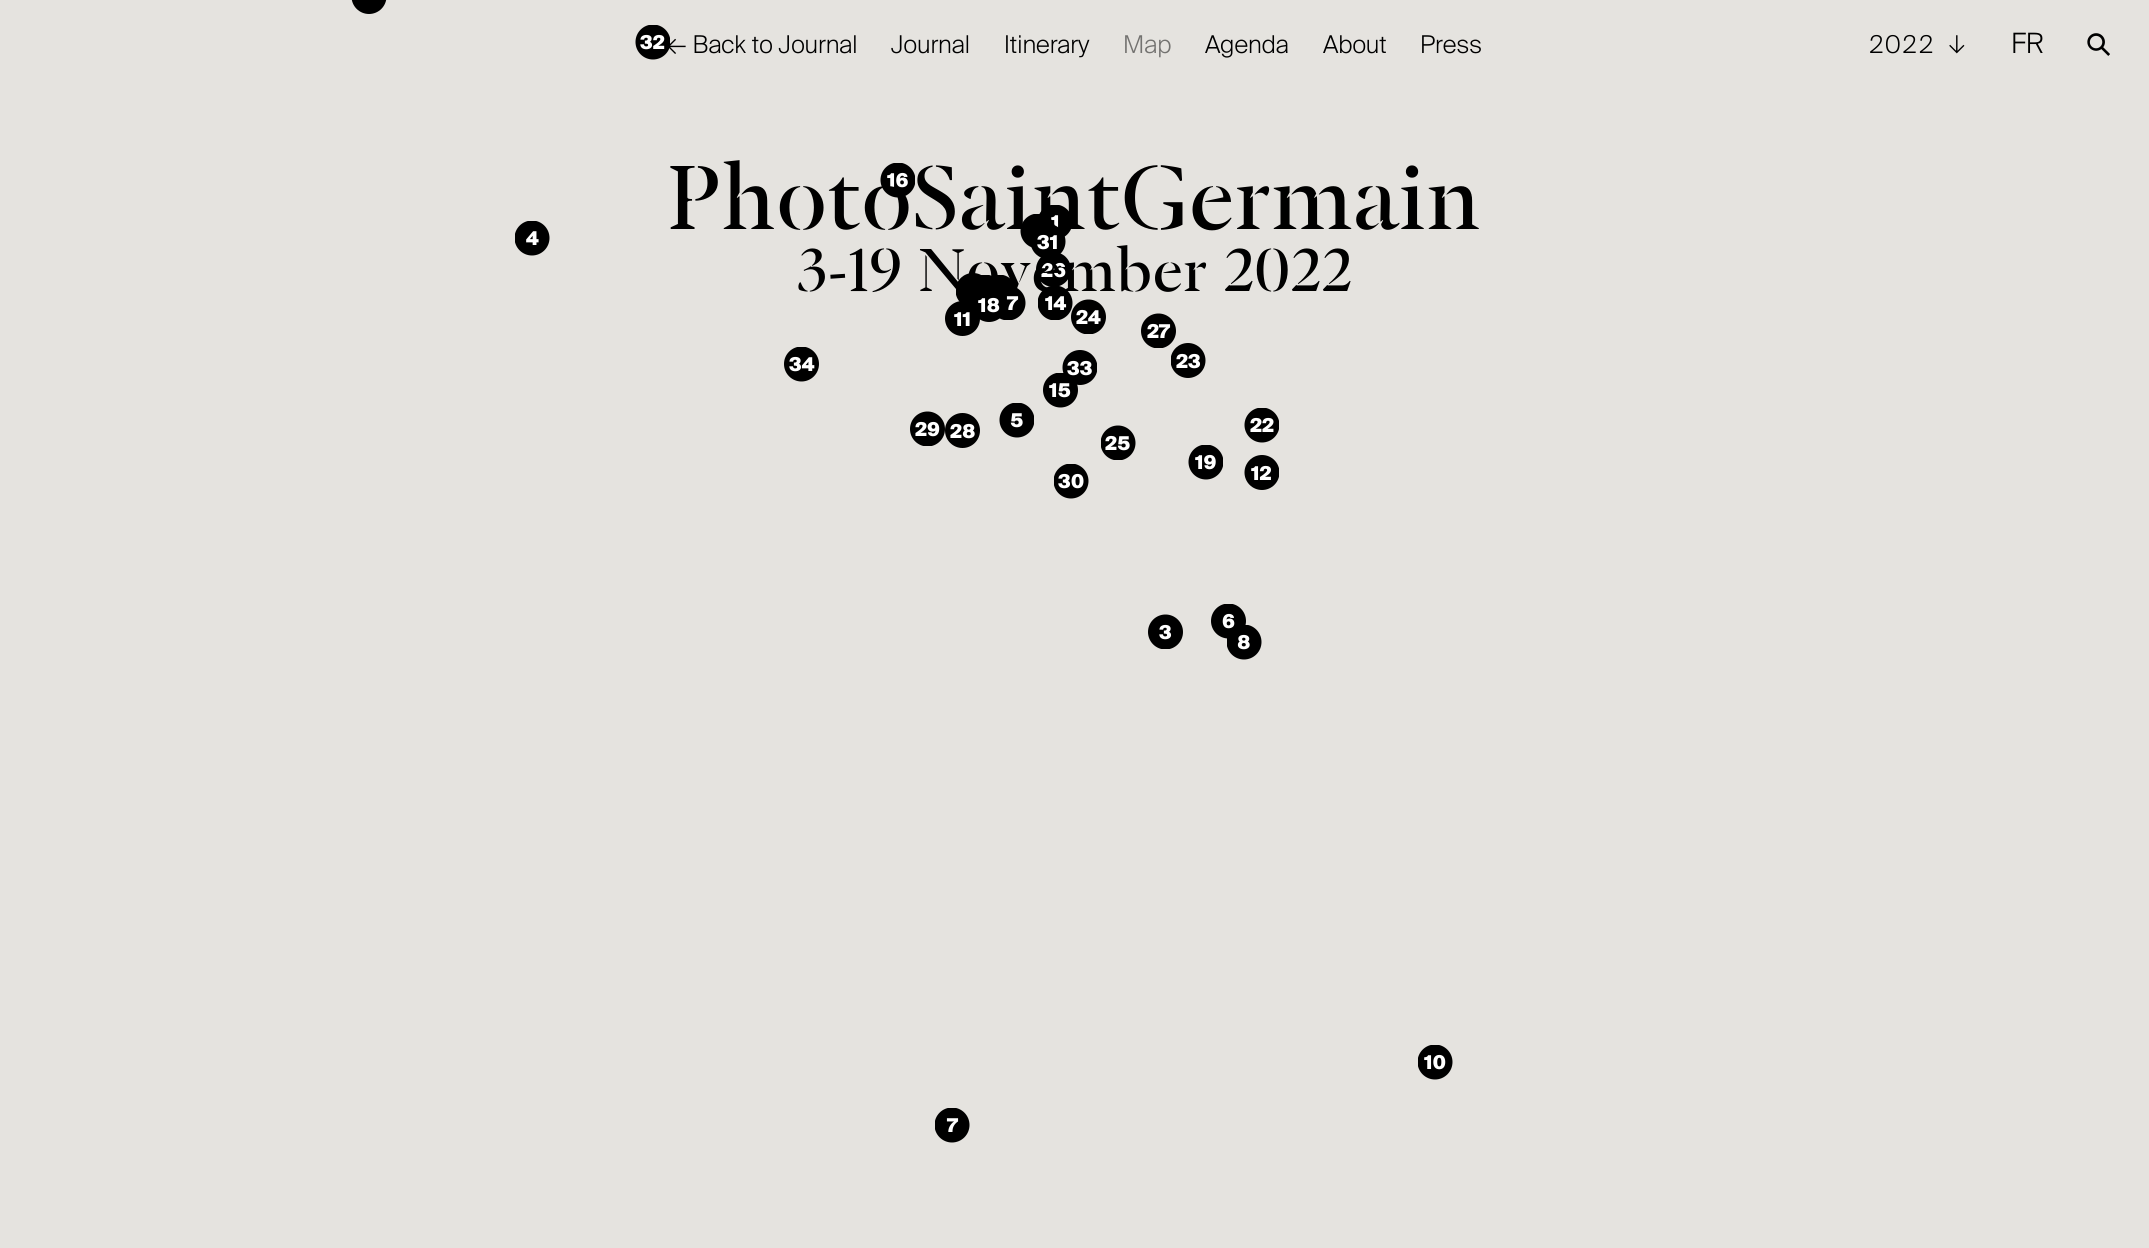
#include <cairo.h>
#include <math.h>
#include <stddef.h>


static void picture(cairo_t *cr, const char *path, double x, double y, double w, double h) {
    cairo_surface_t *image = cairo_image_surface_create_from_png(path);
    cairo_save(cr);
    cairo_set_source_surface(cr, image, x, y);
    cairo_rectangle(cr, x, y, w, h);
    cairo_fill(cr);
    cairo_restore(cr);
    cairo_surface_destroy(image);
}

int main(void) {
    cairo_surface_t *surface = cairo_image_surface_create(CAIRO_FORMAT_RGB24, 2149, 1248);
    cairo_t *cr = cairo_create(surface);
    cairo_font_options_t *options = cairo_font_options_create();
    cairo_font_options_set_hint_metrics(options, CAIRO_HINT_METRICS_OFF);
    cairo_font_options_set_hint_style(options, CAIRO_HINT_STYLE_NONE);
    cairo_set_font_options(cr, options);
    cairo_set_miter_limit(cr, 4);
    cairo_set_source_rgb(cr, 0.898, 0.89, 0.875);
    cairo_paint(cr);
    cairo_save(cr);
    cairo_rectangle(cr, 635, 25, 35, 35);
    cairo_clip(cr);
    cairo_set_source_rgb(cr, 0, 0, 0);
    cairo_arc(cr, 653, 42, 17.5, 0, 2 * M_PI);
    cairo_fill(cr);
    cairo_restore(cr);
    cairo_select_font_face(cr, "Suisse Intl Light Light", CAIRO_FONT_SLANT_NORMAL, CAIRO_FONT_WEIGHT_NORMAL);
    cairo_set_font_size(cr, 24.5);
    cairo_set_source_rgb(cr, 0, 0, 0);
    cairo_move_to(cr, 667, 53);
    cairo_show_text(cr, "← Back to Journal");
    cairo_move_to(cr, 891, 53);
    cairo_show_text(cr, "Journal");
    cairo_move_to(cr, 1004, 53);
    cairo_show_text(cr, "Itinerary");
    cairo_set_source_rgb(cr, 0.451, 0.447, 0.439);
    cairo_move_to(cr, 1123, 53);
    cairo_show_text(cr, "Map");
    cairo_set_source_rgb(cr, 0, 0, 0);
    cairo_move_to(cr, 1205, 53);
    cairo_show_text(cr, "Agenda");
    cairo_move_to(cr, 1323, 53);
    cairo_show_text(cr, "About");
    cairo_move_to(cr, 1420, 53);
    cairo_show_text(cr, "Press");
    cairo_set_font_size(cr, 28);
    cairo_move_to(cr, 2011, 53);
    cairo_show_text(cr, "FR");
    picture(cr, "img1.png", 2087, 33, 23, 23);
    cairo_arc(cr, 369, -3.5, 17.5, 0, 2 * M_PI);
    cairo_fill(cr);
    cairo_select_font_face(cr, "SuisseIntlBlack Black", CAIRO_FONT_SLANT_ITALIC, CAIRO_FONT_WEIGHT_NORMAL);
    cairo_set_font_size(cr, 19);
    cairo_set_source_rgb(cr, 1, 1, 1);
    cairo_move_to(cr, 640, 49);
    cairo_show_text(cr, "32");
    cairo_save(cr);
    cairo_rectangle(cr, 880, 163, 35, 35);
    cairo_clip(cr);
    cairo_set_source_rgb(cr, 0, 0, 0);
    cairo_arc(cr, 898, 180, 17.5, 0, 2 * M_PI);
    cairo_fill(cr);
    cairo_restore(cr);
    cairo_move_to(cr, 887, 187);
    cairo_show_text(cr, "16");
    cairo_save(cr);
    cairo_rectangle(cr, 1038, 205, 35, 35);
    cairo_clip(cr);
    cairo_set_source_rgb(cr, 0, 0, 0);
    cairo_arc(cr, 1055, 222, 17.5, 0, 2 * M_PI);
    cairo_fill(cr);
    cairo_restore(cr);
    cairo_move_to(cr, 1051, 229);
    cairo_show_text(cr, "1");
    cairo_save(cr);
    cairo_rectangle(cr, 1020, 214, 35, 35);
    cairo_clip(cr);
    cairo_set_source_rgb(cr, 0, 0, 0);
    cairo_arc(cr, 1038, 231, 17.5, 0, 2 * M_PI);
    cairo_fill(cr);
    cairo_restore(cr);
    cairo_save(cr);
    cairo_rectangle(cr, 515, 221, 35, 35);
    cairo_clip(cr);
    cairo_set_source_rgb(cr, 0, 0, 0);
    cairo_arc(cr, 532, 238, 17.5, 0, 2 * M_PI);
    cairo_fill(cr);
    cairo_restore(cr);
    cairo_move_to(cr, 526, 245);
    cairo_show_text(cr, "4");
    cairo_save(cr);
    cairo_rectangle(cr, 1031, 224, 35, 35);
    cairo_clip(cr);
    cairo_set_source_rgb(cr, 0, 0, 0);
    cairo_arc(cr, 1048, 241.5, 17.5, 0, 2 * M_PI);
    cairo_fill(cr);
    cairo_restore(cr);
    cairo_move_to(cr, 1037, 249);
    cairo_show_text(cr, "31");
    cairo_set_source_rgb(cr, 0, 0, 0);
    cairo_new_path(cr);
    cairo_arc(cr, 1053.5, 269.5, 17.5, 0, 2 * M_PI);
    cairo_fill(cr);
    cairo_set_source_rgb(cr, 1, 1, 1);
    cairo_move_to(cr, 1041, 277);
    cairo_show_text(cr, "26");
    cairo_save(cr);
    cairo_rectangle(cr, 956, 273, 35, 35);
    cairo_clip(cr);
    cairo_set_source_rgb(cr, 0, 0, 0);
    cairo_arc(cr, 973, 290.5, 17.5, 0, 2 * M_PI);
    cairo_fill(cr);
    cairo_restore(cr);
    cairo_save(cr);
    cairo_rectangle(cr, 982, 275, 35, 35);
    cairo_clip(cr);
    cairo_set_source_rgb(cr, 0, 0, 0);
    cairo_arc(cr, 999, 292, 17.5, 0, 2 * M_PI);
    cairo_fill(cr);
    cairo_restore(cr);
    cairo_save(cr);
    cairo_rectangle(cr, 968, 275, 35, 35);
    cairo_clip(cr);
    cairo_set_source_rgb(cr, 0, 0, 0);
    cairo_arc(cr, 985, 292, 17.5, 0, 2 * M_PI);
    cairo_fill(cr);
    cairo_restore(cr);
    cairo_save(cr);
    cairo_rectangle(cr, 991, 285, 35, 35);
    cairo_clip(cr);
    cairo_set_source_rgb(cr, 0, 0, 0);
    cairo_arc(cr, 1008, 303, 17.5, 0, 2 * M_PI);
    cairo_fill(cr);
    cairo_restore(cr);
    cairo_save(cr);
    cairo_rectangle(cr, 971, 287, 35, 35);
    cairo_clip(cr);
    cairo_set_source_rgb(cr, 0, 0, 0);
    cairo_arc(cr, 989, 304.5, 17.5, 0, 2 * M_PI);
    cairo_fill(cr);
    cairo_restore(cr);
    cairo_save(cr);
    cairo_rectangle(cr, 1038, 285, 35, 35);
    cairo_clip(cr);
    cairo_set_source_rgb(cr, 0, 0, 0);
    cairo_arc(cr, 1055, 303, 17.5, 0, 2 * M_PI);
    cairo_fill(cr);
    cairo_restore(cr);
    cairo_move_to(cr, 978, 312);
    cairo_show_text(cr, "18");
    cairo_set_source_rgb(cr, 0, 0, 0);
    cairo_new_path(cr);
    cairo_arc(cr, 962.5, 318.5, 17.5, 0, 2 * M_PI);
    cairo_fill(cr);
    cairo_set_source_rgb(cr, 1, 1, 1);
    cairo_move_to(cr, 1007, 310);
    cairo_show_text(cr, "7");
    cairo_move_to(cr, 1045, 310);
    cairo_show_text(cr, "14");
    cairo_save(cr);
    cairo_rectangle(cr, 1071, 299, 35, 35);
    cairo_clip(cr);
    cairo_set_source_rgb(cr, 0, 0, 0);
    cairo_arc(cr, 1088.5, 317, 17.5, 0, 2 * M_PI);
    cairo_fill(cr);
    cairo_restore(cr);
    cairo_move_to(cr, 954, 326);
    cairo_show_text(cr, "11");
    cairo_move_to(cr, 1076, 324);
    cairo_show_text(cr, "24");
    cairo_save(cr);
    cairo_rectangle(cr, 1141, 313, 35, 35);
    cairo_clip(cr);
    cairo_set_source_rgb(cr, 0, 0, 0);
    cairo_arc(cr, 1158.5, 331, 17.5, 0, 2 * M_PI);
    cairo_fill(cr);
    cairo_restore(cr);
    cairo_move_to(cr, 1147, 338);
    cairo_show_text(cr, "27");
    cairo_save(cr);
    cairo_rectangle(cr, 784, 347, 35, 35);
    cairo_clip(cr);
    cairo_set_source_rgb(cr, 0, 0, 0);
    cairo_arc(cr, 801.5, 364, 17.5, 0, 2 * M_PI);
    cairo_fill(cr);
    cairo_restore(cr);
    cairo_save(cr);
    cairo_rectangle(cr, 1062, 350, 35, 35);
    cairo_clip(cr);
    cairo_set_source_rgb(cr, 0, 0, 0);
    cairo_arc(cr, 1080, 367.5, 17.5, 0, 2 * M_PI);
    cairo_fill(cr);
    cairo_restore(cr);
    cairo_save(cr);
    cairo_rectangle(cr, 1171, 343, 35, 35);
    cairo_clip(cr);
    cairo_set_source_rgb(cr, 0, 0, 0);
    cairo_arc(cr, 1188, 360.5, 17.5, 0, 2 * M_PI);
    cairo_fill(cr);
    cairo_restore(cr);
    cairo_move_to(cr, 789, 371);
    cairo_show_text(cr, "34");
    cairo_move_to(cr, 1067, 375);
    cairo_show_text(cr, "33");
    cairo_move_to(cr, 1176, 368);
    cairo_show_text(cr, "23");
    cairo_save(cr);
    cairo_rectangle(cr, 1043, 373, 35, 35);
    cairo_clip(cr);
    cairo_set_source_rgb(cr, 0, 0, 0);
    cairo_arc(cr, 1060.5, 390, 17.5, 0, 2 * M_PI);
    cairo_fill(cr);
    cairo_restore(cr);
    cairo_move_to(cr, 1049, 397);
    cairo_show_text(cr, "15");
    cairo_save(cr);
    cairo_rectangle(cr, 910, 411, 35, 35);
    cairo_clip(cr);
    cairo_set_source_rgb(cr, 0, 0, 0);
    cairo_arc(cr, 927.5, 429, 17.5, 0, 2 * M_PI);
    cairo_fill(cr);
    cairo_restore(cr);
    cairo_set_source_rgb(cr, 0, 0, 0);
    cairo_arc(cr, 962.5, 430.5, 17.5, 0, 2 * M_PI);
    cairo_fill(cr);
    cairo_save(cr);
    cairo_rectangle(cr, 999, 403, 35, 35);
    cairo_clip(cr);
    cairo_arc(cr, 1017, 420, 17.5, 0, 2 * M_PI);
    cairo_fill(cr);
    cairo_restore(cr);
    cairo_save(cr);
    cairo_rectangle(cr, 1244, 408, 35, 35);
    cairo_clip(cr);
    cairo_arc(cr, 1262, 425, 17.5, 0, 2 * M_PI);
    cairo_fill(cr);
    cairo_restore(cr);
    cairo_set_source_rgb(cr, 1, 1, 1);
    cairo_move_to(cr, 915, 436);
    cairo_show_text(cr, "29");
    cairo_move_to(cr, 950, 438);
    cairo_show_text(cr, "28");
    cairo_move_to(cr, 1010, 427);
    cairo_show_text(cr, "5");
    cairo_save(cr);
    cairo_rectangle(cr, 1101, 425, 35, 35);
    cairo_clip(cr);
    cairo_set_source_rgb(cr, 0, 0, 0);
    cairo_arc(cr, 1118, 443, 17.5, 0, 2 * M_PI);
    cairo_fill(cr);
    cairo_restore(cr);
    cairo_move_to(cr, 1250, 432);
    cairo_show_text(cr, "22");
    cairo_move_to(cr, 1105, 450);
    cairo_show_text(cr, "25");
    cairo_save(cr);
    cairo_rectangle(cr, 1188, 445, 35, 35);
    cairo_clip(cr);
    cairo_set_source_rgb(cr, 0, 0, 0);
    cairo_arc(cr, 1206, 462, 17.5, 0, 2 * M_PI);
    cairo_fill(cr);
    cairo_restore(cr);
    cairo_save(cr);
    cairo_rectangle(cr, 1054, 464, 35, 35);
    cairo_clip(cr);
    cairo_set_source_rgb(cr, 0, 0, 0);
    cairo_arc(cr, 1071, 481, 17.5, 0, 2 * M_PI);
    cairo_fill(cr);
    cairo_restore(cr);
    cairo_move_to(cr, 1195, 469);
    cairo_show_text(cr, "19");
    cairo_save(cr);
    cairo_rectangle(cr, 1244, 455, 35, 35);
    cairo_clip(cr);
    cairo_set_source_rgb(cr, 0, 0, 0);
    cairo_arc(cr, 1262, 472.5, 17.5, 0, 2 * M_PI);
    cairo_fill(cr);
    cairo_restore(cr);
    cairo_move_to(cr, 1058, 488);
    cairo_show_text(cr, "30");
    cairo_move_to(cr, 1251, 480);
    cairo_show_text(cr, "12");
    cairo_save(cr);
    cairo_rectangle(cr, 1211, 604, 35, 35);
    cairo_clip(cr);
    cairo_set_source_rgb(cr, 0, 0, 0);
    cairo_arc(cr, 1228.5, 621, 17.5, 0, 2 * M_PI);
    cairo_fill(cr);
    cairo_restore(cr);
    cairo_save(cr);
    cairo_rectangle(cr, 1148, 614, 35, 35);
    cairo_clip(cr);
    cairo_set_source_rgb(cr, 0, 0, 0);
    cairo_arc(cr, 1165.5, 632, 17.5, 0, 2 * M_PI);
    cairo_fill(cr);
    cairo_restore(cr);
    cairo_move_to(cr, 1222, 628);
    cairo_show_text(cr, "6");
    cairo_move_to(cr, 1159, 639);
    cairo_show_text(cr, "3");
    cairo_save(cr);
    cairo_rectangle(cr, 1227, 625, 35, 35);
    cairo_clip(cr);
    cairo_set_source_rgb(cr, 0, 0, 0);
    cairo_arc(cr, 1244, 642, 17.5, 0, 2 * M_PI);
    cairo_fill(cr);
    cairo_restore(cr);
    cairo_move_to(cr, 1237, 649);
    cairo_show_text(cr, "8");
    cairo_save(cr);
    cairo_rectangle(cr, 1418, 1045, 35, 35);
    cairo_clip(cr);
    cairo_set_source_rgb(cr, 0, 0, 0);
    cairo_arc(cr, 1435, 1062, 17.5, 0, 2 * M_PI);
    cairo_fill(cr);
    cairo_restore(cr);
    cairo_move_to(cr, 1424, 1069);
    cairo_show_text(cr, "10");
    cairo_save(cr);
    cairo_rectangle(cr, 935, 1108, 35, 35);
    cairo_clip(cr);
    cairo_set_source_rgb(cr, 0, 0, 0);
    cairo_arc(cr, 952, 1125, 17.5, 0, 2 * M_PI);
    cairo_fill(cr);
    cairo_restore(cr);
    cairo_move_to(cr, 947, 1132);
    cairo_show_text(cr, "7");
    cairo_select_font_face(cr, "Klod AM", CAIRO_FONT_SLANT_NORMAL, CAIRO_FONT_WEIGHT_NORMAL);
    cairo_set_font_size(cr, 84);
    cairo_set_source_rgb(cr, 0, 0, 0);
    cairo_move_to(cr, 667, 229);
    cairo_show_text(cr, "PhotoSaintGermain");
    cairo_set_font_size(cr, 56);
    cairo_move_to(cr, 797, 291);
    cairo_show_text(cr, "3-19 November 2022");
    cairo_select_font_face(cr, "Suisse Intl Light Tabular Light", CAIRO_FONT_SLANT_NORMAL, CAIRO_FONT_WEIGHT_NORMAL);
    cairo_set_font_size(cr, 24.5);
    cairo_move_to(cr, 1868, 53);
    cairo_show_text(cr, "2022");
    cairo_select_font_face(cr, "Suisse Intl Light Light", CAIRO_FONT_SLANT_NORMAL, CAIRO_FONT_WEIGHT_NORMAL);
    cairo_move_to(cr, 1947, 53);
    cairo_show_text(cr, "↓");
    cairo_surface_write_to_png(surface, "page.png");
    cairo_font_options_destroy(options);
    cairo_destroy(cr);
    cairo_surface_destroy(surface);
    return 0;
}
